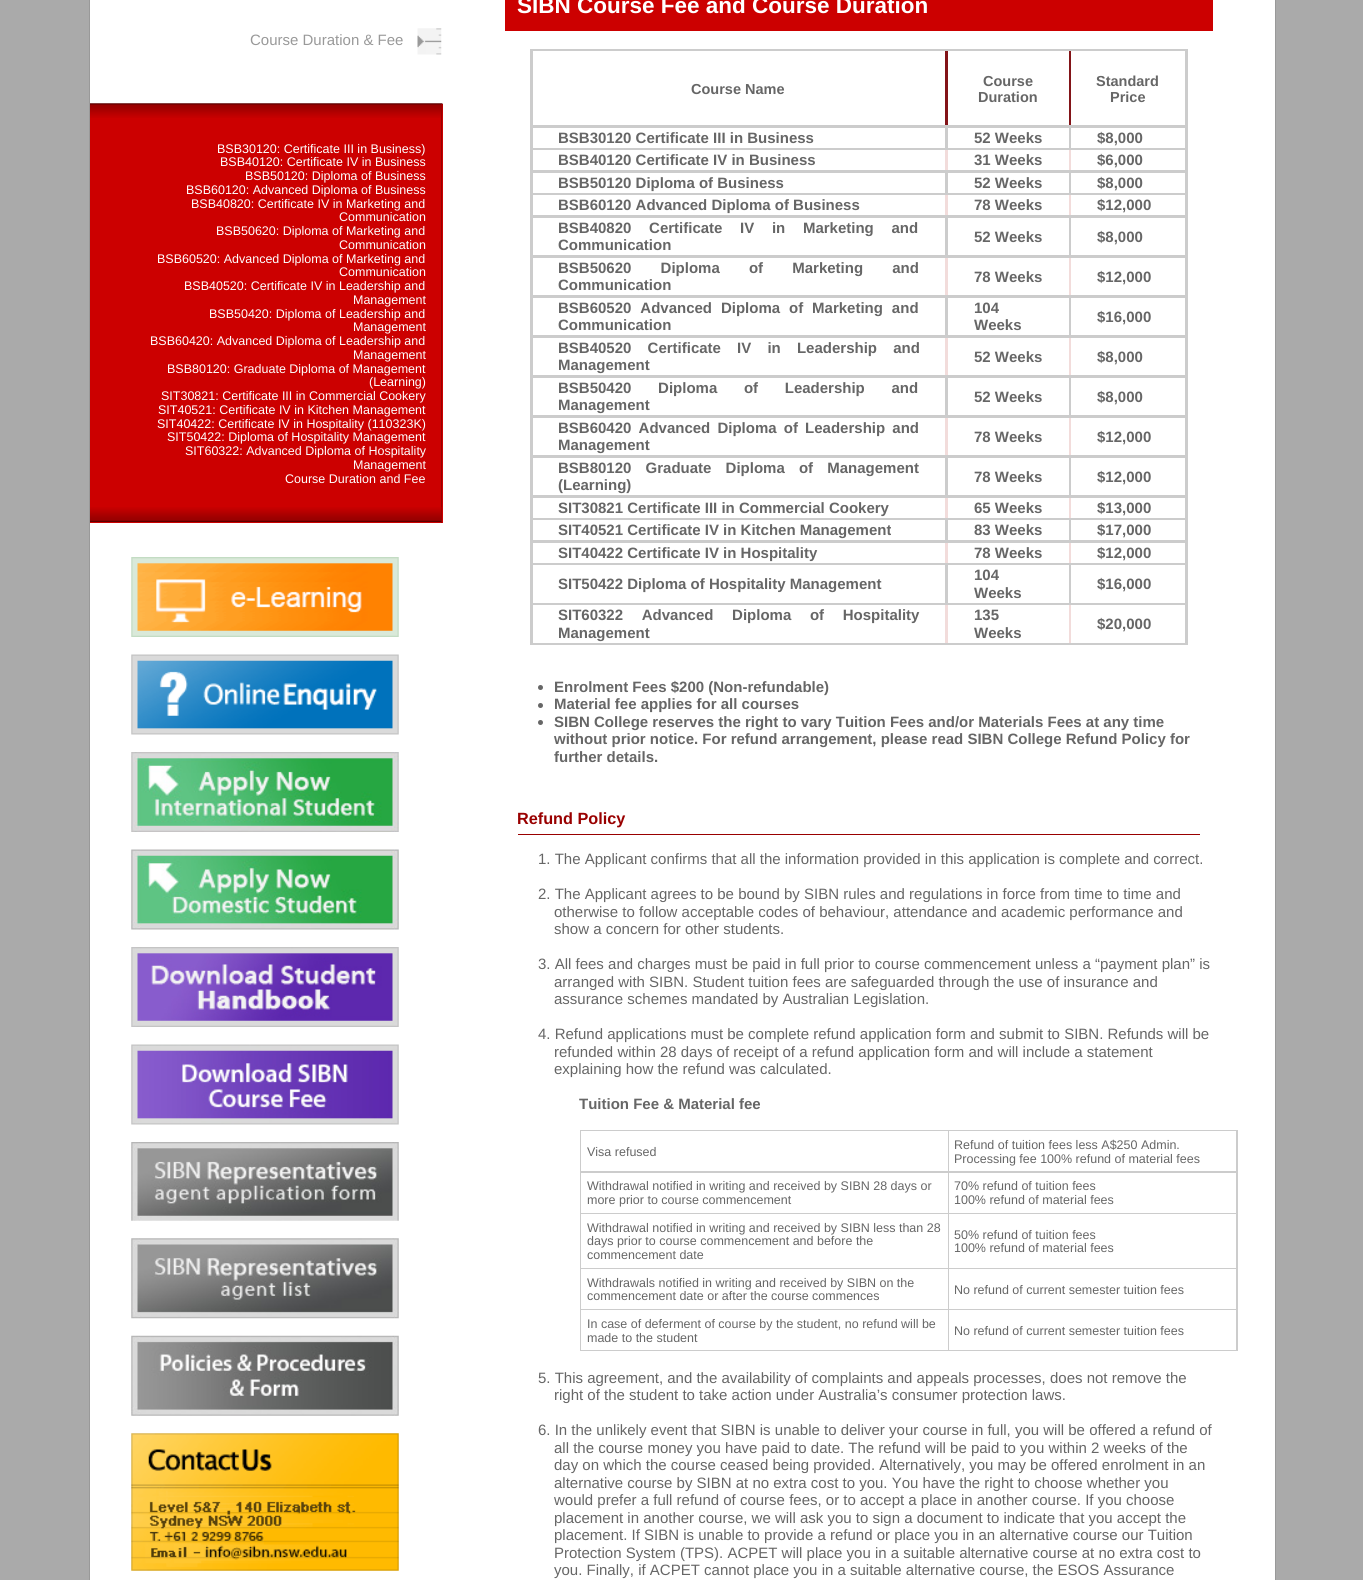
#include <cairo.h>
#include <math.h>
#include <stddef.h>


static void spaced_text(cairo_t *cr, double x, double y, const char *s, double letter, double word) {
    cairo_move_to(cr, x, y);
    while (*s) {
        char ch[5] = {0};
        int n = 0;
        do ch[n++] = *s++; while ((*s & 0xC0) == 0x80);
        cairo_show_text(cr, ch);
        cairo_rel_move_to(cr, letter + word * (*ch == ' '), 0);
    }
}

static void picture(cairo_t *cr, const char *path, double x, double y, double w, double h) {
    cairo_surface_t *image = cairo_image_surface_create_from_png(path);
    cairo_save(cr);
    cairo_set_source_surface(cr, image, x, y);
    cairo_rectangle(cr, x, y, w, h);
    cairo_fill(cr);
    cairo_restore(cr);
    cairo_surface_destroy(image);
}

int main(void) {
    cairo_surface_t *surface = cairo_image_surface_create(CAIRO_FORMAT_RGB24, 1363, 1580);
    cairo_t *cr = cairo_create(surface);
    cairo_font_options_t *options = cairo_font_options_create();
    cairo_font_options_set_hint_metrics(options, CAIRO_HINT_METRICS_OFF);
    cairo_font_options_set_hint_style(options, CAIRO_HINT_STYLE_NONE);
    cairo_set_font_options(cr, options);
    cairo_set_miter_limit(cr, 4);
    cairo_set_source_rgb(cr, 0.667, 0.667, 0.667);
    cairo_paint(cr);
    cairo_set_source_rgb(cr, 1, 1, 1);
    cairo_rectangle(cr, 90, 0, 1185, 1580);
    cairo_fill(cr);
    cairo_set_source_rgb(cr, 0.6, 0.6, 0.6);
    cairo_rectangle(cr, 1275, 0, 1, 1580);
    cairo_fill(cr);
    cairo_rectangle(cr, 89, 0, 1, 1580);
    cairo_fill(cr);
    picture(cr, "img1.png", 417, 28, 25, 27);
    cairo_select_font_face(cr, "Liberation Sans", CAIRO_FONT_SLANT_NORMAL, CAIRO_FONT_WEIGHT_NORMAL);
    cairo_set_font_size(cr, 15);
    cairo_move_to(cr, 250, 45);
    cairo_show_text(cr, "Course Duration & Fee");
    cairo_set_source_rgb(cr, 0.8, 0, 0);
    cairo_rectangle(cr, 90, 104, 353, 419);
    cairo_fill(cr);
    picture(cr, "img2.png", 90, 103, 353, 15);
    cairo_set_source_rgb(cr, 0.6, 0, 0);
    cairo_rectangle(cr, 441, 104, 1, 419);
    cairo_fill(cr);
    picture(cr, "img3.png", 90, 507, 352, 15);
    cairo_set_font_size(cr, 12.5);
    cairo_set_source_rgb(cr, 1, 1, 1);
    cairo_move_to(cr, 217, 153);
    cairo_show_text(cr, "BSB30120: Certificate III in Business)");
    cairo_move_to(cr, 220, 166);
    cairo_show_text(cr, "BSB40120: Certificate IV in Business");
    cairo_move_to(cr, 245, 180);
    cairo_show_text(cr, "BSB50120: Diploma of Business");
    cairo_move_to(cr, 186, 194);
    cairo_show_text(cr, "BSB60120: Advanced Diploma of Business");
    cairo_move_to(cr, 191, 208);
    cairo_show_text(cr, "BSB40820: Certificate IV in Marketing and");
    cairo_move_to(cr, 339, 221);
    cairo_show_text(cr, "Communication");
    cairo_move_to(cr, 216, 235);
    cairo_show_text(cr, "BSB50620: Diploma of Marketing and");
    cairo_move_to(cr, 339, 249);
    cairo_show_text(cr, "Communication");
    cairo_move_to(cr, 157, 263);
    cairo_show_text(cr, "BSB60520: Advanced Diploma of Marketing and");
    cairo_move_to(cr, 339, 276);
    cairo_show_text(cr, "Communication");
    cairo_move_to(cr, 184, 290);
    cairo_show_text(cr, "BSB40520: Certificate IV in Leadership and");
    cairo_move_to(cr, 353, 304);
    cairo_show_text(cr, "Management");
    cairo_move_to(cr, 209, 318);
    cairo_show_text(cr, "BSB50420: Diploma of Leadership and");
    cairo_move_to(cr, 353, 331);
    cairo_show_text(cr, "Management");
    cairo_move_to(cr, 150, 345);
    cairo_show_text(cr, "BSB60420: Advanced Diploma of Leadership and");
    cairo_move_to(cr, 353, 359);
    cairo_show_text(cr, "Management");
    cairo_move_to(cr, 167, 373);
    cairo_show_text(cr, "BSB80120: Graduate Diploma of Management");
    cairo_move_to(cr, 369, 386);
    cairo_show_text(cr, "(Learning)");
    cairo_move_to(cr, 161, 400);
    cairo_show_text(cr, "SIT30821: Certificate III in Commercial Cookery");
    cairo_move_to(cr, 158, 414);
    cairo_show_text(cr, "SIT40521: Certificate IV in Kitchen Management");
    cairo_move_to(cr, 157, 428);
    cairo_show_text(cr, "SIT40422: Certificate IV in Hospitality (110323K)");
    cairo_move_to(cr, 167, 441);
    cairo_show_text(cr, "SIT50422: Diploma of Hospitality Management");
    cairo_move_to(cr, 185, 455);
    cairo_show_text(cr, "SIT60322: Advanced Diploma of Hospitality");
    cairo_move_to(cr, 353, 469);
    cairo_show_text(cr, "Management");
    cairo_move_to(cr, 285, 483);
    cairo_show_text(cr, "Course Duration and Fee");
    picture(cr, "img4.png", 131, 557, 268, 80);
    picture(cr, "img5.png", 131, 654, 268, 81);
    picture(cr, "img6.png", 131, 752, 268, 80);
    picture(cr, "img7.png", 131, 849, 268, 81);
    picture(cr, "img8.png", 131, 947, 268, 80);
    picture(cr, "img9.png", 131, 1044, 268, 81);
    picture(cr, "img10.png", 131, 1142, 268, 79);
    picture(cr, "img11.png", 131, 1238, 268, 81);
    picture(cr, "img12.png", 131, 1335, 268, 81);
    picture(cr, "img13.png", 131, 1433, 268, 138);
    cairo_set_source_rgb(cr, 0.8, 0, 0);
    cairo_rectangle(cr, 505, 0, 708, 31);
    cairo_fill(cr);
    cairo_select_font_face(cr, "Liberation Sans", CAIRO_FONT_SLANT_NORMAL, CAIRO_FONT_WEIGHT_BOLD);
    cairo_set_font_size(cr, 22.5);
    cairo_set_source_rgb(cr, 1, 1, 1);
    cairo_move_to(cr, 517, 13);
    cairo_show_text(cr, "SIBN Course Fee and Course Duration");
    cairo_set_source_rgb(cr, 0.8, 0.8, 0.8);
    cairo_rectangle(cr, 530, 49, 658, 596);
    cairo_fill(cr);
    cairo_set_source_rgb(cr, 0.514, 0.082, 0.094);
    cairo_rectangle(cr, 945, 51, 126, 74);
    cairo_fill(cr);
    cairo_set_source_rgb(cr, 1, 1, 1);
    cairo_rectangle(cr, 533, 51, 412, 74);
    cairo_fill(cr);
    cairo_set_font_size(cr, 14.5);
    cairo_set_source_rgb(cr, 0.4, 0.4, 0.4);
    cairo_move_to(cr, 691, 94);
    cairo_show_text(cr, "Course Name");
    cairo_set_source_rgb(cr, 1, 1, 1);
    cairo_rectangle(cr, 948, 51, 121, 74);
    cairo_fill(cr);
    cairo_set_source_rgb(cr, 0.4, 0.4, 0.4);
    cairo_move_to(cr, 983, 86);
    cairo_show_text(cr, "Course");
    cairo_move_to(cr, 978, 102);
    cairo_show_text(cr, "Duration");
    cairo_set_source_rgb(cr, 1, 1, 1);
    cairo_rectangle(cr, 1071, 51, 114, 74);
    cairo_fill(cr);
    cairo_set_source_rgb(cr, 0.4, 0.4, 0.4);
    cairo_move_to(cr, 1096, 86);
    cairo_show_text(cr, "Standard");
    cairo_move_to(cr, 1110, 102);
    cairo_show_text(cr, "Price");
    cairo_set_source_rgb(cr, 1, 1, 1);
    cairo_rectangle(cr, 533, 128, 412, 20);
    cairo_fill(cr);
    cairo_set_font_size(cr, 15);
    cairo_set_source_rgb(cr, 0.4, 0.4, 0.4);
    cairo_move_to(cr, 558, 143);
    cairo_show_text(cr, "BSB30120 Certificate III in Business");
    cairo_set_source_rgb(cr, 1, 1, 1);
    cairo_rectangle(cr, 948, 128, 121, 20);
    cairo_fill(cr);
    cairo_set_source_rgb(cr, 0.4, 0.4, 0.4);
    cairo_move_to(cr, 974, 143);
    cairo_show_text(cr, "52 Weeks");
    cairo_set_source_rgb(cr, 1, 1, 1);
    cairo_rectangle(cr, 1071, 128, 114, 20);
    cairo_fill(cr);
    cairo_set_source_rgb(cr, 0.4, 0.4, 0.4);
    cairo_move_to(cr, 1097, 143);
    cairo_show_text(cr, "$8,000");
    cairo_set_source_rgb(cr, 0.949, 0.863, 0.859);
    cairo_rectangle(cr, 945, 150, 126, 20);
    cairo_fill(cr);
    cairo_set_source_rgb(cr, 1, 1, 1);
    cairo_rectangle(cr, 533, 150, 412, 20);
    cairo_fill(cr);
    cairo_set_source_rgb(cr, 0.4, 0.4, 0.4);
    cairo_move_to(cr, 558, 165);
    cairo_show_text(cr, "BSB40120 Certificate IV in Business");
    cairo_set_source_rgb(cr, 1, 1, 1);
    cairo_rectangle(cr, 948, 150, 121, 20);
    cairo_fill(cr);
    cairo_set_source_rgb(cr, 0.4, 0.4, 0.4);
    cairo_move_to(cr, 974, 165);
    cairo_show_text(cr, "31 Weeks");
    cairo_set_source_rgb(cr, 1, 1, 1);
    cairo_rectangle(cr, 1071, 150, 114, 20);
    cairo_fill(cr);
    cairo_set_source_rgb(cr, 0.4, 0.4, 0.4);
    cairo_move_to(cr, 1097, 165);
    cairo_show_text(cr, "$6,000");
    cairo_set_source_rgb(cr, 1, 1, 1);
    cairo_rectangle(cr, 533, 173, 412, 20);
    cairo_fill(cr);
    cairo_set_source_rgb(cr, 0.4, 0.4, 0.4);
    cairo_move_to(cr, 558, 188);
    cairo_show_text(cr, "BSB50120 Diploma of Business");
    cairo_set_source_rgb(cr, 1, 1, 1);
    cairo_rectangle(cr, 948, 173, 121, 20);
    cairo_fill(cr);
    cairo_set_source_rgb(cr, 0.4, 0.4, 0.4);
    cairo_move_to(cr, 974, 188);
    cairo_show_text(cr, "52 Weeks");
    cairo_set_source_rgb(cr, 1, 1, 1);
    cairo_rectangle(cr, 1071, 173, 114, 20);
    cairo_fill(cr);
    cairo_set_source_rgb(cr, 0.4, 0.4, 0.4);
    cairo_move_to(cr, 1097, 188);
    cairo_show_text(cr, "$8,000");
    cairo_set_source_rgb(cr, 0.949, 0.863, 0.859);
    cairo_rectangle(cr, 945, 195, 126, 20);
    cairo_fill(cr);
    cairo_set_source_rgb(cr, 1, 1, 1);
    cairo_rectangle(cr, 533, 195, 412, 20);
    cairo_fill(cr);
    cairo_set_source_rgb(cr, 0.4, 0.4, 0.4);
    cairo_move_to(cr, 558, 210);
    cairo_show_text(cr, "BSB60120 Advanced Diploma of Business");
    cairo_set_source_rgb(cr, 1, 1, 1);
    cairo_rectangle(cr, 948, 195, 121, 20);
    cairo_fill(cr);
    cairo_set_source_rgb(cr, 0.4, 0.4, 0.4);
    cairo_move_to(cr, 974, 210);
    cairo_show_text(cr, "78 Weeks");
    cairo_set_source_rgb(cr, 1, 1, 1);
    cairo_rectangle(cr, 1071, 195, 114, 20);
    cairo_fill(cr);
    cairo_set_source_rgb(cr, 0.4, 0.4, 0.4);
    cairo_move_to(cr, 1097, 210);
    cairo_show_text(cr, "$12,000");
    cairo_set_source_rgb(cr, 1, 1, 1);
    cairo_rectangle(cr, 533, 218, 412, 37);
    cairo_fill(cr);
    cairo_set_source_rgb(cr, 0.4, 0.4, 0.4);
    spaced_text(cr, 558, 233, "BSB40820 Certificate IV in Marketing and", 0, 13.5);
    cairo_move_to(cr, 558, 250);
    cairo_show_text(cr, "Communication");
    cairo_set_source_rgb(cr, 1, 1, 1);
    cairo_rectangle(cr, 948, 218, 121, 37);
    cairo_fill(cr);
    cairo_set_source_rgb(cr, 0.4, 0.4, 0.4);
    cairo_move_to(cr, 974, 242);
    cairo_show_text(cr, "52 Weeks");
    cairo_set_source_rgb(cr, 1, 1, 1);
    cairo_rectangle(cr, 1071, 218, 114, 37);
    cairo_fill(cr);
    cairo_set_source_rgb(cr, 0.4, 0.4, 0.4);
    cairo_move_to(cr, 1097, 242);
    cairo_show_text(cr, "$8,000");
    cairo_set_source_rgb(cr, 0.949, 0.863, 0.859);
    cairo_rectangle(cr, 945, 258, 126, 37);
    cairo_fill(cr);
    cairo_set_source_rgb(cr, 1, 1, 1);
    cairo_rectangle(cr, 533, 258, 412, 37);
    cairo_fill(cr);
    cairo_set_source_rgb(cr, 0.4, 0.4, 0.4);
    spaced_text(cr, 558, 273, "BSB50620 Diploma of Marketing and", 0, 25);
    cairo_move_to(cr, 558, 290);
    cairo_show_text(cr, "Communication");
    cairo_set_source_rgb(cr, 1, 1, 1);
    cairo_rectangle(cr, 948, 258, 121, 37);
    cairo_fill(cr);
    cairo_set_source_rgb(cr, 0.4, 0.4, 0.4);
    cairo_move_to(cr, 974, 282);
    cairo_show_text(cr, "78 Weeks");
    cairo_set_source_rgb(cr, 1, 1, 1);
    cairo_rectangle(cr, 1071, 258, 114, 37);
    cairo_fill(cr);
    cairo_set_source_rgb(cr, 0.4, 0.4, 0.4);
    cairo_move_to(cr, 1097, 282);
    cairo_show_text(cr, "$12,000");
    cairo_set_source_rgb(cr, 1, 1, 1);
    cairo_rectangle(cr, 533, 298, 412, 37);
    cairo_fill(cr);
    cairo_set_source_rgb(cr, 0.4, 0.4, 0.4);
    spaced_text(cr, 558, 313, "BSB60520 Advanced Diploma of Marketing and", 0, 4.75);
    cairo_move_to(cr, 558, 330);
    cairo_show_text(cr, "Communication");
    cairo_set_source_rgb(cr, 1, 1, 1);
    cairo_rectangle(cr, 948, 298, 121, 37);
    cairo_fill(cr);
    cairo_set_source_rgb(cr, 0.4, 0.4, 0.4);
    cairo_move_to(cr, 974, 313);
    cairo_show_text(cr, "104");
    cairo_move_to(cr, 974, 330);
    cairo_show_text(cr, "Weeks");
    cairo_set_source_rgb(cr, 1, 1, 1);
    cairo_rectangle(cr, 1071, 298, 114, 37);
    cairo_fill(cr);
    cairo_set_source_rgb(cr, 0.4, 0.4, 0.4);
    cairo_move_to(cr, 1097, 322);
    cairo_show_text(cr, "$16,000");
    cairo_set_source_rgb(cr, 0.949, 0.863, 0.859);
    cairo_rectangle(cr, 945, 338, 126, 37);
    cairo_fill(cr);
    cairo_set_source_rgb(cr, 1, 1, 1);
    cairo_rectangle(cr, 533, 338, 412, 37);
    cairo_fill(cr);
    cairo_set_source_rgb(cr, 0.4, 0.4, 0.4);
    spaced_text(cr, 558, 353, "BSB40520 Certificate IV in Leadership and", 0, 12);
    cairo_move_to(cr, 558, 370);
    cairo_show_text(cr, "Management");
    cairo_set_source_rgb(cr, 1, 1, 1);
    cairo_rectangle(cr, 948, 338, 121, 37);
    cairo_fill(cr);
    cairo_set_source_rgb(cr, 0.4, 0.4, 0.4);
    cairo_move_to(cr, 974, 362);
    cairo_show_text(cr, "52 Weeks");
    cairo_set_source_rgb(cr, 1, 1, 1);
    cairo_rectangle(cr, 1071, 338, 114, 37);
    cairo_fill(cr);
    cairo_set_source_rgb(cr, 0.4, 0.4, 0.4);
    cairo_move_to(cr, 1097, 362);
    cairo_show_text(cr, "$8,000");
    cairo_set_source_rgb(cr, 1, 1, 1);
    cairo_rectangle(cr, 533, 378, 412, 37);
    cairo_fill(cr);
    cairo_set_source_rgb(cr, 0.4, 0.4, 0.4);
    spaced_text(cr, 558, 393, "BSB50420 Diploma of Leadership and", 0, 22.5);
    cairo_move_to(cr, 558, 410);
    cairo_show_text(cr, "Management");
    cairo_set_source_rgb(cr, 1, 1, 1);
    cairo_rectangle(cr, 948, 378, 121, 37);
    cairo_fill(cr);
    cairo_set_source_rgb(cr, 0.4, 0.4, 0.4);
    cairo_move_to(cr, 974, 402);
    cairo_show_text(cr, "52 Weeks");
    cairo_set_source_rgb(cr, 1, 1, 1);
    cairo_rectangle(cr, 1071, 378, 114, 37);
    cairo_fill(cr);
    cairo_set_source_rgb(cr, 0.4, 0.4, 0.4);
    cairo_move_to(cr, 1097, 402);
    cairo_show_text(cr, "$8,000");
    cairo_set_source_rgb(cr, 0.949, 0.863, 0.859);
    cairo_rectangle(cr, 945, 418, 126, 37);
    cairo_fill(cr);
    cairo_set_source_rgb(cr, 1, 1, 1);
    cairo_rectangle(cr, 533, 418, 412, 37);
    cairo_fill(cr);
    cairo_set_source_rgb(cr, 0.4, 0.4, 0.4);
    spaced_text(cr, 558, 433, "BSB60420 Advanced Diploma of Leadership and", 0, 3);
    cairo_move_to(cr, 558, 450);
    cairo_show_text(cr, "Management");
    cairo_set_source_rgb(cr, 1, 1, 1);
    cairo_rectangle(cr, 948, 418, 121, 37);
    cairo_fill(cr);
    cairo_set_source_rgb(cr, 0.4, 0.4, 0.4);
    cairo_move_to(cr, 974, 442);
    cairo_show_text(cr, "78 Weeks");
    cairo_set_source_rgb(cr, 1, 1, 1);
    cairo_rectangle(cr, 1071, 418, 114, 37);
    cairo_fill(cr);
    cairo_set_source_rgb(cr, 0.4, 0.4, 0.4);
    cairo_move_to(cr, 1097, 442);
    cairo_show_text(cr, "$12,000");
    cairo_set_source_rgb(cr, 1, 1, 1);
    cairo_rectangle(cr, 533, 458, 412, 37);
    cairo_fill(cr);
    cairo_set_source_rgb(cr, 0.4, 0.4, 0.4);
    spaced_text(cr, 558, 473, "BSB80120 Graduate Diploma of Management", 0, 10);
    cairo_move_to(cr, 558, 490);
    cairo_show_text(cr, "(Learning)");
    cairo_set_source_rgb(cr, 1, 1, 1);
    cairo_rectangle(cr, 948, 458, 121, 37);
    cairo_fill(cr);
    cairo_set_source_rgb(cr, 0.4, 0.4, 0.4);
    cairo_move_to(cr, 974, 482);
    cairo_show_text(cr, "78 Weeks");
    cairo_set_source_rgb(cr, 1, 1, 1);
    cairo_rectangle(cr, 1071, 458, 114, 37);
    cairo_fill(cr);
    cairo_set_source_rgb(cr, 0.4, 0.4, 0.4);
    cairo_move_to(cr, 1097, 482);
    cairo_show_text(cr, "$12,000");
    cairo_set_source_rgb(cr, 0.949, 0.863, 0.859);
    cairo_rectangle(cr, 945, 498, 126, 20);
    cairo_fill(cr);
    cairo_set_source_rgb(cr, 1, 1, 1);
    cairo_rectangle(cr, 533, 498, 412, 20);
    cairo_fill(cr);
    cairo_set_source_rgb(cr, 0.4, 0.4, 0.4);
    cairo_move_to(cr, 558, 513);
    cairo_show_text(cr, "SIT30821 Certificate III in Commercial Cookery");
    cairo_set_source_rgb(cr, 1, 1, 1);
    cairo_rectangle(cr, 948, 498, 121, 20);
    cairo_fill(cr);
    cairo_set_source_rgb(cr, 0.4, 0.4, 0.4);
    cairo_move_to(cr, 974, 513);
    cairo_show_text(cr, "65 Weeks");
    cairo_set_source_rgb(cr, 1, 1, 1);
    cairo_rectangle(cr, 1071, 498, 114, 20);
    cairo_fill(cr);
    cairo_set_source_rgb(cr, 0.4, 0.4, 0.4);
    cairo_move_to(cr, 1097, 513);
    cairo_show_text(cr, "$13,000");
    cairo_set_source_rgb(cr, 1, 1, 1);
    cairo_rectangle(cr, 533, 520, 412, 20);
    cairo_fill(cr);
    cairo_set_source_rgb(cr, 0.4, 0.4, 0.4);
    cairo_move_to(cr, 558, 535);
    cairo_show_text(cr, "SIT40521 Certificate IV in Kitchen Management");
    cairo_set_source_rgb(cr, 1, 1, 1);
    cairo_rectangle(cr, 948, 520, 121, 20);
    cairo_fill(cr);
    cairo_set_source_rgb(cr, 0.4, 0.4, 0.4);
    cairo_move_to(cr, 974, 535);
    cairo_show_text(cr, "83 Weeks");
    cairo_set_source_rgb(cr, 1, 1, 1);
    cairo_rectangle(cr, 1071, 520, 114, 20);
    cairo_fill(cr);
    cairo_set_source_rgb(cr, 0.4, 0.4, 0.4);
    cairo_move_to(cr, 1097, 535);
    cairo_show_text(cr, "$17,000");
    cairo_set_source_rgb(cr, 0.949, 0.863, 0.859);
    cairo_rectangle(cr, 945, 543, 126, 20);
    cairo_fill(cr);
    cairo_set_source_rgb(cr, 1, 1, 1);
    cairo_rectangle(cr, 533, 543, 412, 20);
    cairo_fill(cr);
    cairo_set_source_rgb(cr, 0.4, 0.4, 0.4);
    cairo_move_to(cr, 558, 558);
    cairo_show_text(cr, "SIT40422 Certificate IV in Hospitality");
    cairo_set_source_rgb(cr, 1, 1, 1);
    cairo_rectangle(cr, 948, 543, 121, 20);
    cairo_fill(cr);
    cairo_set_source_rgb(cr, 0.4, 0.4, 0.4);
    cairo_move_to(cr, 974, 558);
    cairo_show_text(cr, "78 Weeks");
    cairo_set_source_rgb(cr, 1, 1, 1);
    cairo_rectangle(cr, 1071, 543, 114, 20);
    cairo_fill(cr);
    cairo_set_source_rgb(cr, 0.4, 0.4, 0.4);
    cairo_move_to(cr, 1097, 558);
    cairo_show_text(cr, "$12,000");
    cairo_set_source_rgb(cr, 1, 1, 1);
    cairo_rectangle(cr, 533, 565, 412, 38);
    cairo_fill(cr);
    cairo_set_source_rgb(cr, 0.4, 0.4, 0.4);
    cairo_move_to(cr, 558, 589);
    cairo_show_text(cr, "SIT50422 Diploma of Hospitality Management");
    cairo_set_source_rgb(cr, 1, 1, 1);
    cairo_rectangle(cr, 948, 565, 121, 38);
    cairo_fill(cr);
    cairo_set_source_rgb(cr, 0.4, 0.4, 0.4);
    cairo_move_to(cr, 974, 580);
    cairo_show_text(cr, "104");
    cairo_move_to(cr, 974, 598);
    cairo_show_text(cr, "Weeks");
    cairo_set_source_rgb(cr, 1, 1, 1);
    cairo_rectangle(cr, 1071, 565, 114, 38);
    cairo_fill(cr);
    cairo_set_source_rgb(cr, 0.4, 0.4, 0.4);
    cairo_move_to(cr, 1097, 589);
    cairo_show_text(cr, "$16,000");
    cairo_set_source_rgb(cr, 0.949, 0.863, 0.859);
    cairo_rectangle(cr, 945, 605, 126, 38);
    cairo_fill(cr);
    cairo_set_source_rgb(cr, 1, 1, 1);
    cairo_rectangle(cr, 533, 605, 412, 38);
    cairo_fill(cr);
    cairo_set_source_rgb(cr, 0.4, 0.4, 0.4);
    spaced_text(cr, 558, 620, "SIT60322 Advanced Diploma of Hospitality", 0, 14.5);
    cairo_move_to(cr, 558, 638);
    cairo_show_text(cr, "Management");
    cairo_set_source_rgb(cr, 1, 1, 1);
    cairo_rectangle(cr, 948, 605, 121, 38);
    cairo_fill(cr);
    cairo_set_source_rgb(cr, 0.4, 0.4, 0.4);
    cairo_move_to(cr, 974, 620);
    cairo_show_text(cr, "135");
    cairo_move_to(cr, 974, 638);
    cairo_show_text(cr, "Weeks");
    cairo_set_source_rgb(cr, 1, 1, 1);
    cairo_rectangle(cr, 1071, 605, 114, 38);
    cairo_fill(cr);
    cairo_set_source_rgb(cr, 0.4, 0.4, 0.4);
    cairo_move_to(cr, 1097, 629);
    cairo_show_text(cr, "$20,000");
    cairo_new_path(cr);
    cairo_arc(cr, 540.5, 687.5, 2.5, 0, 2 * M_PI);
    cairo_fill(cr);
    cairo_move_to(cr, 554, 692);
    cairo_show_text(cr, "Enrolment Fees $200 (Non-refundable)");
    cairo_new_path(cr);
    cairo_arc(cr, 540.5, 705.5, 2.5, 0, 2 * M_PI);
    cairo_fill(cr);
    cairo_move_to(cr, 554, 709);
    cairo_show_text(cr, "Material fee applies for all courses");
    cairo_new_path(cr);
    cairo_arc(cr, 540.5, 722.5, 2.5, 0, 2 * M_PI);
    cairo_fill(cr);
    cairo_move_to(cr, 554, 727);
    cairo_show_text(cr, "SIBN College reserves the right to vary Tuition Fees and/or Materials Fees at any time");
    cairo_move_to(cr, 554, 744);
    cairo_show_text(cr, "without prior notice. For refund arrangement, please read SIBN College Refund Policy for");
    cairo_move_to(cr, 554, 762);
    cairo_show_text(cr, "further details.");
    cairo_set_source_rgb(cr, 0.6, 0, 0);
    cairo_rectangle(cr, 518, 834, 682, 1);
    cairo_fill(cr);
    cairo_set_font_size(cr, 16.25);
    cairo_move_to(cr, 517, 824);
    cairo_show_text(cr, "Refund Policy");
    cairo_select_font_face(cr, "Liberation Sans", CAIRO_FONT_SLANT_NORMAL, CAIRO_FONT_WEIGHT_NORMAL);
    cairo_set_font_size(cr, 15);
    cairo_set_source_rgb(cr, 0.4, 0.4, 0.4);
    cairo_move_to(cr, 538, 864);
    cairo_show_text(cr, "1. The Applicant confirms that all the information provided in this application is complete and correct.");
    cairo_move_to(cr, 538, 899);
    cairo_show_text(cr, "2. The Applicant agrees to be bound by SIBN rules and regulations in force from time to time and");
    cairo_move_to(cr, 554, 917);
    cairo_show_text(cr, "otherwise to follow acceptable codes of behaviour, attendance and academic performance and");
    cairo_move_to(cr, 554, 934);
    cairo_show_text(cr, "show a concern for other students.");
    cairo_move_to(cr, 538, 969);
    cairo_show_text(cr, "3. All fees and charges must be paid in full prior to course commencement unless a “payment plan” is");
    cairo_move_to(cr, 554, 987);
    cairo_show_text(cr, "arranged with SIBN. Student tuition fees are safeguarded through the use of insurance and");
    cairo_move_to(cr, 554, 1004);
    cairo_show_text(cr, "assurance schemes mandated by Australian Legislation.");
    cairo_move_to(cr, 538, 1039);
    cairo_show_text(cr, "4. Refund applications must be complete refund application form and submit to SIBN. Refunds will be");
    cairo_move_to(cr, 554, 1057);
    cairo_show_text(cr, "refunded within 28 days of receipt of a refund application form and will include a statement");
    cairo_move_to(cr, 554, 1074);
    cairo_show_text(cr, "explaining how the refund was calculated.");
    cairo_select_font_face(cr, "Liberation Sans", CAIRO_FONT_SLANT_NORMAL, CAIRO_FONT_WEIGHT_BOLD);
    cairo_move_to(cr, 579, 1109);
    cairo_show_text(cr, "Tuition Fee & Material fee");
    cairo_set_source_rgb(cr, 0.8, 0.8, 0.8);
    cairo_rectangle(cr, 580, 1130, 658, 221);
    cairo_fill(cr);
    cairo_set_source_rgb(cr, 1, 1, 1);
    cairo_rectangle(cr, 581, 1131, 367, 40);
    cairo_fill(cr);
    cairo_select_font_face(cr, "Liberation Sans", CAIRO_FONT_SLANT_NORMAL, CAIRO_FONT_WEIGHT_NORMAL);
    cairo_set_font_size(cr, 12.5);
    cairo_set_source_rgb(cr, 0.4, 0.4, 0.4);
    cairo_move_to(cr, 587, 1156);
    cairo_show_text(cr, "Visa refused");
    cairo_set_source_rgb(cr, 1, 1, 1);
    cairo_rectangle(cr, 949, 1131, 287, 40);
    cairo_fill(cr);
    cairo_set_source_rgb(cr, 0.4, 0.4, 0.4);
    cairo_move_to(cr, 954, 1149);
    cairo_show_text(cr, "Refund of tuition fees less A$250 Admin.");
    cairo_move_to(cr, 954, 1163);
    cairo_show_text(cr, "Processing fee 100% refund of material fees");
    cairo_set_source_rgb(cr, 1, 1, 1);
    cairo_rectangle(cr, 581, 1173, 367, 40);
    cairo_fill(cr);
    cairo_set_source_rgb(cr, 0.4, 0.4, 0.4);
    cairo_move_to(cr, 587, 1190);
    cairo_show_text(cr, "Withdrawal notified in writing and received by SIBN 28 days or");
    cairo_move_to(cr, 587, 1204);
    cairo_show_text(cr, "more prior to course commencement");
    cairo_set_source_rgb(cr, 1, 1, 1);
    cairo_rectangle(cr, 949, 1173, 287, 40);
    cairo_fill(cr);
    cairo_set_source_rgb(cr, 0.4, 0.4, 0.4);
    cairo_move_to(cr, 954, 1190);
    cairo_show_text(cr, "70% refund of tuition fees");
    cairo_move_to(cr, 954, 1204);
    cairo_show_text(cr, "100% refund of material fees");
    cairo_set_source_rgb(cr, 1, 1, 1);
    cairo_rectangle(cr, 581, 1214, 367, 54);
    cairo_fill(cr);
    cairo_set_source_rgb(cr, 0.4, 0.4, 0.4);
    cairo_move_to(cr, 587, 1232);
    cairo_show_text(cr, "Withdrawal notified in writing and received by SIBN less than 28");
    cairo_move_to(cr, 587, 1245);
    cairo_show_text(cr, "days prior to course commencement and before the");
    cairo_move_to(cr, 587, 1259);
    cairo_show_text(cr, "commencement date");
    cairo_set_source_rgb(cr, 1, 1, 1);
    cairo_rectangle(cr, 949, 1214, 287, 54);
    cairo_fill(cr);
    cairo_set_source_rgb(cr, 0.4, 0.4, 0.4);
    cairo_move_to(cr, 954, 1239);
    cairo_show_text(cr, "50% refund of tuition fees");
    cairo_move_to(cr, 954, 1252);
    cairo_show_text(cr, "100% refund of material fees");
    cairo_set_source_rgb(cr, 1, 1, 1);
    cairo_rectangle(cr, 581, 1269, 367, 40);
    cairo_fill(cr);
    cairo_set_source_rgb(cr, 0.4, 0.4, 0.4);
    cairo_move_to(cr, 587, 1287);
    cairo_show_text(cr, "Withdrawals notified in writing and received by SIBN on the");
    cairo_move_to(cr, 587, 1300);
    cairo_show_text(cr, "commencement date or after the course commences");
    cairo_set_source_rgb(cr, 1, 1, 1);
    cairo_rectangle(cr, 949, 1269, 287, 40);
    cairo_fill(cr);
    cairo_set_source_rgb(cr, 0.4, 0.4, 0.4);
    cairo_move_to(cr, 954, 1294);
    cairo_show_text(cr, "No refund of current semester tuition fees");
    cairo_set_source_rgb(cr, 1, 1, 1);
    cairo_rectangle(cr, 581, 1310, 367, 40);
    cairo_fill(cr);
    cairo_set_source_rgb(cr, 0.4, 0.4, 0.4);
    cairo_move_to(cr, 587, 1328);
    cairo_show_text(cr, "In case of deferment of course by the student, no refund will be");
    cairo_move_to(cr, 587, 1342);
    cairo_show_text(cr, "made to the student");
    cairo_set_source_rgb(cr, 1, 1, 1);
    cairo_rectangle(cr, 949, 1310, 287, 40);
    cairo_fill(cr);
    cairo_set_source_rgb(cr, 0.4, 0.4, 0.4);
    cairo_move_to(cr, 954, 1335);
    cairo_show_text(cr, "No refund of current semester tuition fees");
    cairo_set_font_size(cr, 15);
    cairo_move_to(cr, 538, 1383);
    cairo_show_text(cr, "5. This agreement, and the availability of complaints and appeals processes, does not remove the");
    cairo_move_to(cr, 554, 1400);
    cairo_show_text(cr, "right of the student to take action under Australia’s consumer protection laws.");
    cairo_move_to(cr, 538, 1435);
    cairo_show_text(cr, "6. In the unlikely event that SIBN is unable to deliver your course in full, you will be offered a refund of");
    cairo_move_to(cr, 554, 1453);
    cairo_show_text(cr, "all the course money you have paid to date. The refund will be paid to you within 2 weeks of the");
    cairo_move_to(cr, 554, 1470);
    cairo_show_text(cr, "day on which the course ceased being provided. Alternatively, you may be offered enrolment in an");
    cairo_move_to(cr, 554, 1488);
    cairo_show_text(cr, "alternative course by SIBN at no extra cost to you. You have the right to choose whether you");
    cairo_move_to(cr, 554, 1505);
    cairo_show_text(cr, "would prefer a full refund of course fees, or to accept a place in another course. If you choose");
    cairo_move_to(cr, 554, 1523);
    cairo_show_text(cr, "placement in another course, we will ask you to sign a document to indicate that you accept the");
    cairo_move_to(cr, 554, 1540);
    cairo_show_text(cr, "placement. If SIBN is unable to provide a refund or place you in an alternative course our Tuition");
    cairo_move_to(cr, 554, 1558);
    cairo_show_text(cr, "Protection System (TPS). ACPET will place you in a suitable alternative course at no extra cost to");
    cairo_move_to(cr, 554, 1575);
    cairo_show_text(cr, "you. Finally, if ACPET cannot place you in a suitable alternative course, the ESOS Assurance");
    cairo_surface_write_to_png(surface, "page.png");
    cairo_font_options_destroy(options);
    cairo_destroy(cr);
    cairo_surface_destroy(surface);
    return 0;
}
